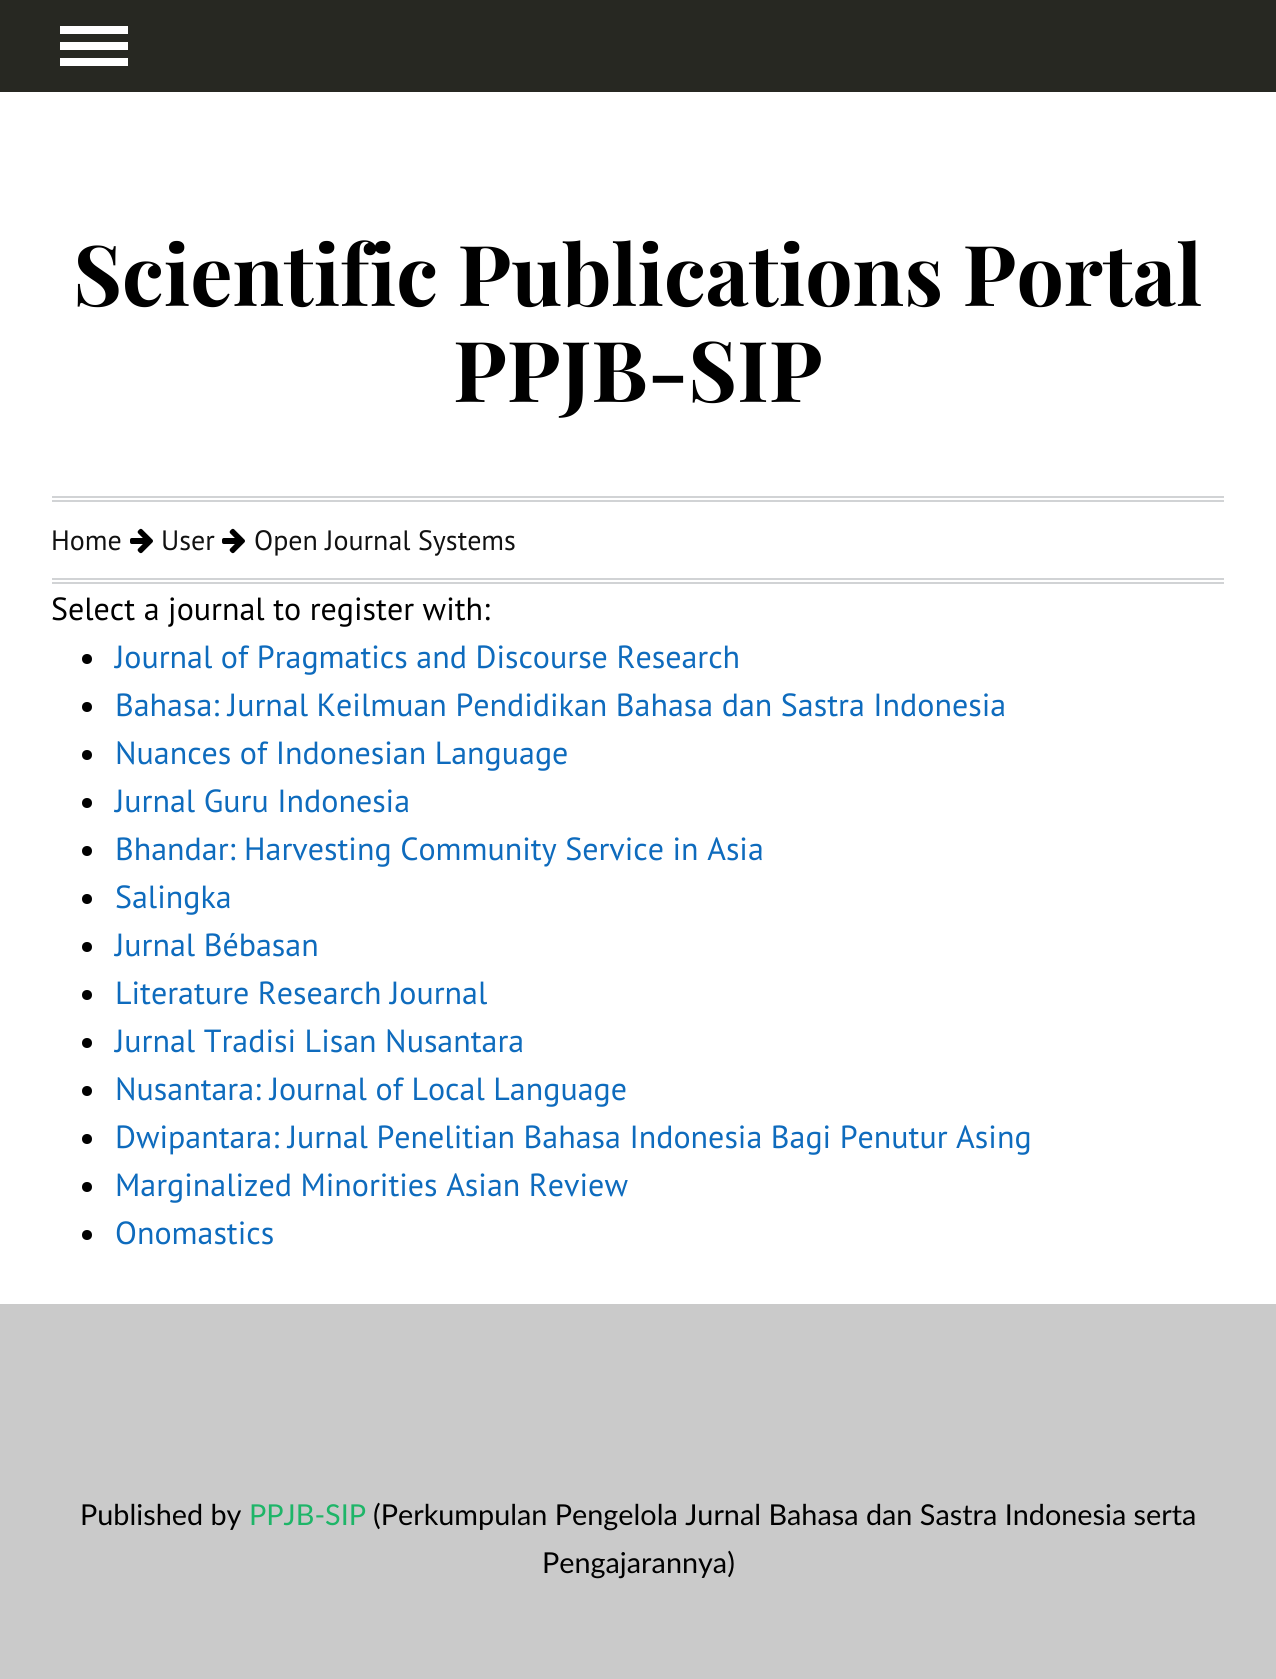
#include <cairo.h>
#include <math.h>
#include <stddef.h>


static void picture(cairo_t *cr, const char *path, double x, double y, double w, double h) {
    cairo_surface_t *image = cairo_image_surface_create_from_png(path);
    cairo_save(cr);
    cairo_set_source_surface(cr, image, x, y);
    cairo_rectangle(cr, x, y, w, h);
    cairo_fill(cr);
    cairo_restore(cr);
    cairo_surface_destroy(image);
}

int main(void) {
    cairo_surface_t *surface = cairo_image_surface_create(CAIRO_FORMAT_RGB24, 1276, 1679);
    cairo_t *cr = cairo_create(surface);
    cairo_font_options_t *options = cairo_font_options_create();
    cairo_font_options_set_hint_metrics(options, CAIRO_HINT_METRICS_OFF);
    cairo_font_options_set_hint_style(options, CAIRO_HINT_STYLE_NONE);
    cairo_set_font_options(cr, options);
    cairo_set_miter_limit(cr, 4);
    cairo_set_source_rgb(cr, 0.792, 0.792, 0.792);
    cairo_paint(cr);
    cairo_set_source_rgb(cr, 0.153, 0.157, 0.133);
    cairo_rectangle(cr, 0, 0, 1276, 92);
    cairo_fill(cr);
    cairo_set_source_rgb(cr, 1, 1, 1);
    cairo_rectangle(cr, 60, 26, 68, 8);
    cairo_fill(cr);
    cairo_rectangle(cr, 60, 42, 68, 8);
    cairo_fill(cr);
    cairo_rectangle(cr, 60, 58, 68, 8);
    cairo_fill(cr);
    cairo_rectangle(cr, 0, 92, 1276, 1212);
    cairo_fill(cr);
    cairo_select_font_face(cr, "Playfair Display", CAIRO_FONT_SLANT_NORMAL, CAIRO_FONT_WEIGHT_BOLD);
    cairo_set_font_size(cr, 84);
    cairo_set_source_rgb(cr, 0, 0, 0);
    cairo_move_to(cr, 73, 306);
    cairo_show_text(cr, "Scientific Publications Portal");
    cairo_move_to(cr, 453, 402);
    cairo_show_text(cr, "PPJB-SIP");
    cairo_set_source_rgb(cr, 0.82, 0.827, 0.835);
    cairo_rectangle(cr, 52, 496, 1172, 2);
    cairo_fill(cr);
    cairo_rectangle(cr, 52, 500, 1172, 2);
    cairo_fill(cr);
    cairo_rectangle(cr, 52, 578, 1172, 2);
    cairo_fill(cr);
    cairo_rectangle(cr, 52, 582, 1172, 2);
    cairo_fill(cr);
    cairo_select_font_face(cr, "PT Sans", CAIRO_FONT_SLANT_NORMAL, CAIRO_FONT_WEIGHT_NORMAL);
    cairo_set_font_size(cr, 28);
    cairo_set_source_rgb(cr, 0.067, 0.067, 0.067);
    cairo_move_to(cr, 51, 550);
    cairo_show_text(cr, "Home");
    picture(cr, "img1.png", 130, 528, 23, 26);
    cairo_move_to(cr, 161, 550);
    cairo_show_text(cr, "User");
    picture(cr, "img1.png", 222, 528, 23, 26);
    cairo_move_to(cr, 254, 550);
    cairo_show_text(cr, "Open Journal Systems");
    cairo_set_font_size(cr, 32);
    cairo_set_source_rgb(cr, 0, 0, 0);
    cairo_move_to(cr, 51, 620);
    cairo_show_text(cr, "Select a journal to register with:");
    cairo_new_path(cr);
    cairo_arc(cr, 87, 659, 5, 0, 2 * M_PI);
    cairo_fill(cr);
    cairo_set_source_rgb(cr, 0.055, 0.42, 0.741);
    cairo_move_to(cr, 115, 668);
    cairo_show_text(cr, "Journal of Pragmatics and Discourse Research");
    cairo_set_source_rgb(cr, 0, 0, 0);
    cairo_new_path(cr);
    cairo_arc(cr, 87, 707, 5, 0, 2 * M_PI);
    cairo_fill(cr);
    cairo_set_source_rgb(cr, 0.055, 0.42, 0.741);
    cairo_move_to(cr, 115, 716);
    cairo_show_text(cr, "Bahasa: Jurnal Keilmuan Pendidikan Bahasa dan Sastra Indonesia");
    cairo_set_source_rgb(cr, 0, 0, 0);
    cairo_new_path(cr);
    cairo_arc(cr, 87, 755, 5, 0, 2 * M_PI);
    cairo_fill(cr);
    cairo_set_source_rgb(cr, 0.055, 0.42, 0.741);
    cairo_move_to(cr, 115, 764);
    cairo_show_text(cr, "Nuances of Indonesian Language");
    cairo_set_source_rgb(cr, 0, 0, 0);
    cairo_new_path(cr);
    cairo_arc(cr, 87, 803, 5, 0, 2 * M_PI);
    cairo_fill(cr);
    cairo_set_source_rgb(cr, 0.055, 0.42, 0.741);
    cairo_move_to(cr, 115, 812);
    cairo_show_text(cr, "Jurnal Guru Indonesia");
    cairo_set_source_rgb(cr, 0, 0, 0);
    cairo_new_path(cr);
    cairo_arc(cr, 87, 851, 5, 0, 2 * M_PI);
    cairo_fill(cr);
    cairo_set_source_rgb(cr, 0.055, 0.42, 0.741);
    cairo_move_to(cr, 115, 860);
    cairo_show_text(cr, "Bhandar: Harvesting Community Service in Asia");
    cairo_set_source_rgb(cr, 0, 0, 0);
    cairo_new_path(cr);
    cairo_arc(cr, 87, 899, 5, 0, 2 * M_PI);
    cairo_fill(cr);
    cairo_set_source_rgb(cr, 0.055, 0.42, 0.741);
    cairo_move_to(cr, 115, 908);
    cairo_show_text(cr, "Salingka");
    cairo_set_source_rgb(cr, 0, 0, 0);
    cairo_new_path(cr);
    cairo_arc(cr, 87, 947, 5, 0, 2 * M_PI);
    cairo_fill(cr);
    cairo_set_source_rgb(cr, 0.055, 0.42, 0.741);
    cairo_move_to(cr, 115, 956);
    cairo_show_text(cr, "Jurnal Bébasan");
    cairo_set_source_rgb(cr, 0, 0, 0);
    cairo_new_path(cr);
    cairo_arc(cr, 87, 995, 5, 0, 2 * M_PI);
    cairo_fill(cr);
    cairo_set_source_rgb(cr, 0.055, 0.42, 0.741);
    cairo_move_to(cr, 115, 1004);
    cairo_show_text(cr, "Literature Research Journal");
    cairo_set_source_rgb(cr, 0, 0, 0);
    cairo_new_path(cr);
    cairo_arc(cr, 87, 1043, 5, 0, 2 * M_PI);
    cairo_fill(cr);
    cairo_set_source_rgb(cr, 0.055, 0.42, 0.741);
    cairo_move_to(cr, 115, 1052);
    cairo_show_text(cr, "Jurnal Tradisi Lisan Nusantara");
    cairo_set_source_rgb(cr, 0, 0, 0);
    cairo_new_path(cr);
    cairo_arc(cr, 87, 1091, 5, 0, 2 * M_PI);
    cairo_fill(cr);
    cairo_set_source_rgb(cr, 0.055, 0.42, 0.741);
    cairo_move_to(cr, 115, 1100);
    cairo_show_text(cr, "Nusantara: Journal of Local Language");
    cairo_set_source_rgb(cr, 0, 0, 0);
    cairo_new_path(cr);
    cairo_arc(cr, 87, 1139, 5, 0, 2 * M_PI);
    cairo_fill(cr);
    cairo_set_source_rgb(cr, 0.055, 0.42, 0.741);
    cairo_move_to(cr, 115, 1148);
    cairo_show_text(cr, "Dwipantara: Jurnal Penelitian Bahasa Indonesia Bagi Penutur Asing");
    cairo_set_source_rgb(cr, 0, 0, 0);
    cairo_new_path(cr);
    cairo_arc(cr, 87, 1187, 5, 0, 2 * M_PI);
    cairo_fill(cr);
    cairo_set_source_rgb(cr, 0.055, 0.42, 0.741);
    cairo_move_to(cr, 115, 1196);
    cairo_show_text(cr, "Marginalized Minorities Asian Review");
    cairo_set_source_rgb(cr, 0, 0, 0);
    cairo_new_path(cr);
    cairo_arc(cr, 87, 1235, 5, 0, 2 * M_PI);
    cairo_fill(cr);
    cairo_set_source_rgb(cr, 0.055, 0.42, 0.741);
    cairo_move_to(cr, 115, 1244);
    cairo_show_text(cr, "Onomastics");
    cairo_select_font_face(cr, "Lato", CAIRO_FONT_SLANT_NORMAL, CAIRO_FONT_WEIGHT_NORMAL);
    cairo_set_font_size(cr, 28.8);
    cairo_set_source_rgb(cr, 0, 0, 0);
    cairo_move_to(cr, 80, 1525);
    cairo_show_text(cr, "Published by");
    cairo_set_source_rgb(cr, 0.118, 0.71, 0.408);
    cairo_move_to(cr, 249, 1525);
    cairo_show_text(cr, "PPJB-SIP");
    cairo_set_source_rgb(cr, 0, 0, 0);
    cairo_move_to(cr, 373, 1525);
    cairo_show_text(cr, "(Perkumpulan Pengelola Jurnal Bahasa dan Sastra Indonesia serta");
    cairo_move_to(cr, 542, 1573);
    cairo_show_text(cr, "Pengajarannya)");
    cairo_surface_write_to_png(surface, "page.png");
    cairo_font_options_destroy(options);
    cairo_destroy(cr);
    cairo_surface_destroy(surface);
    return 0;
}
